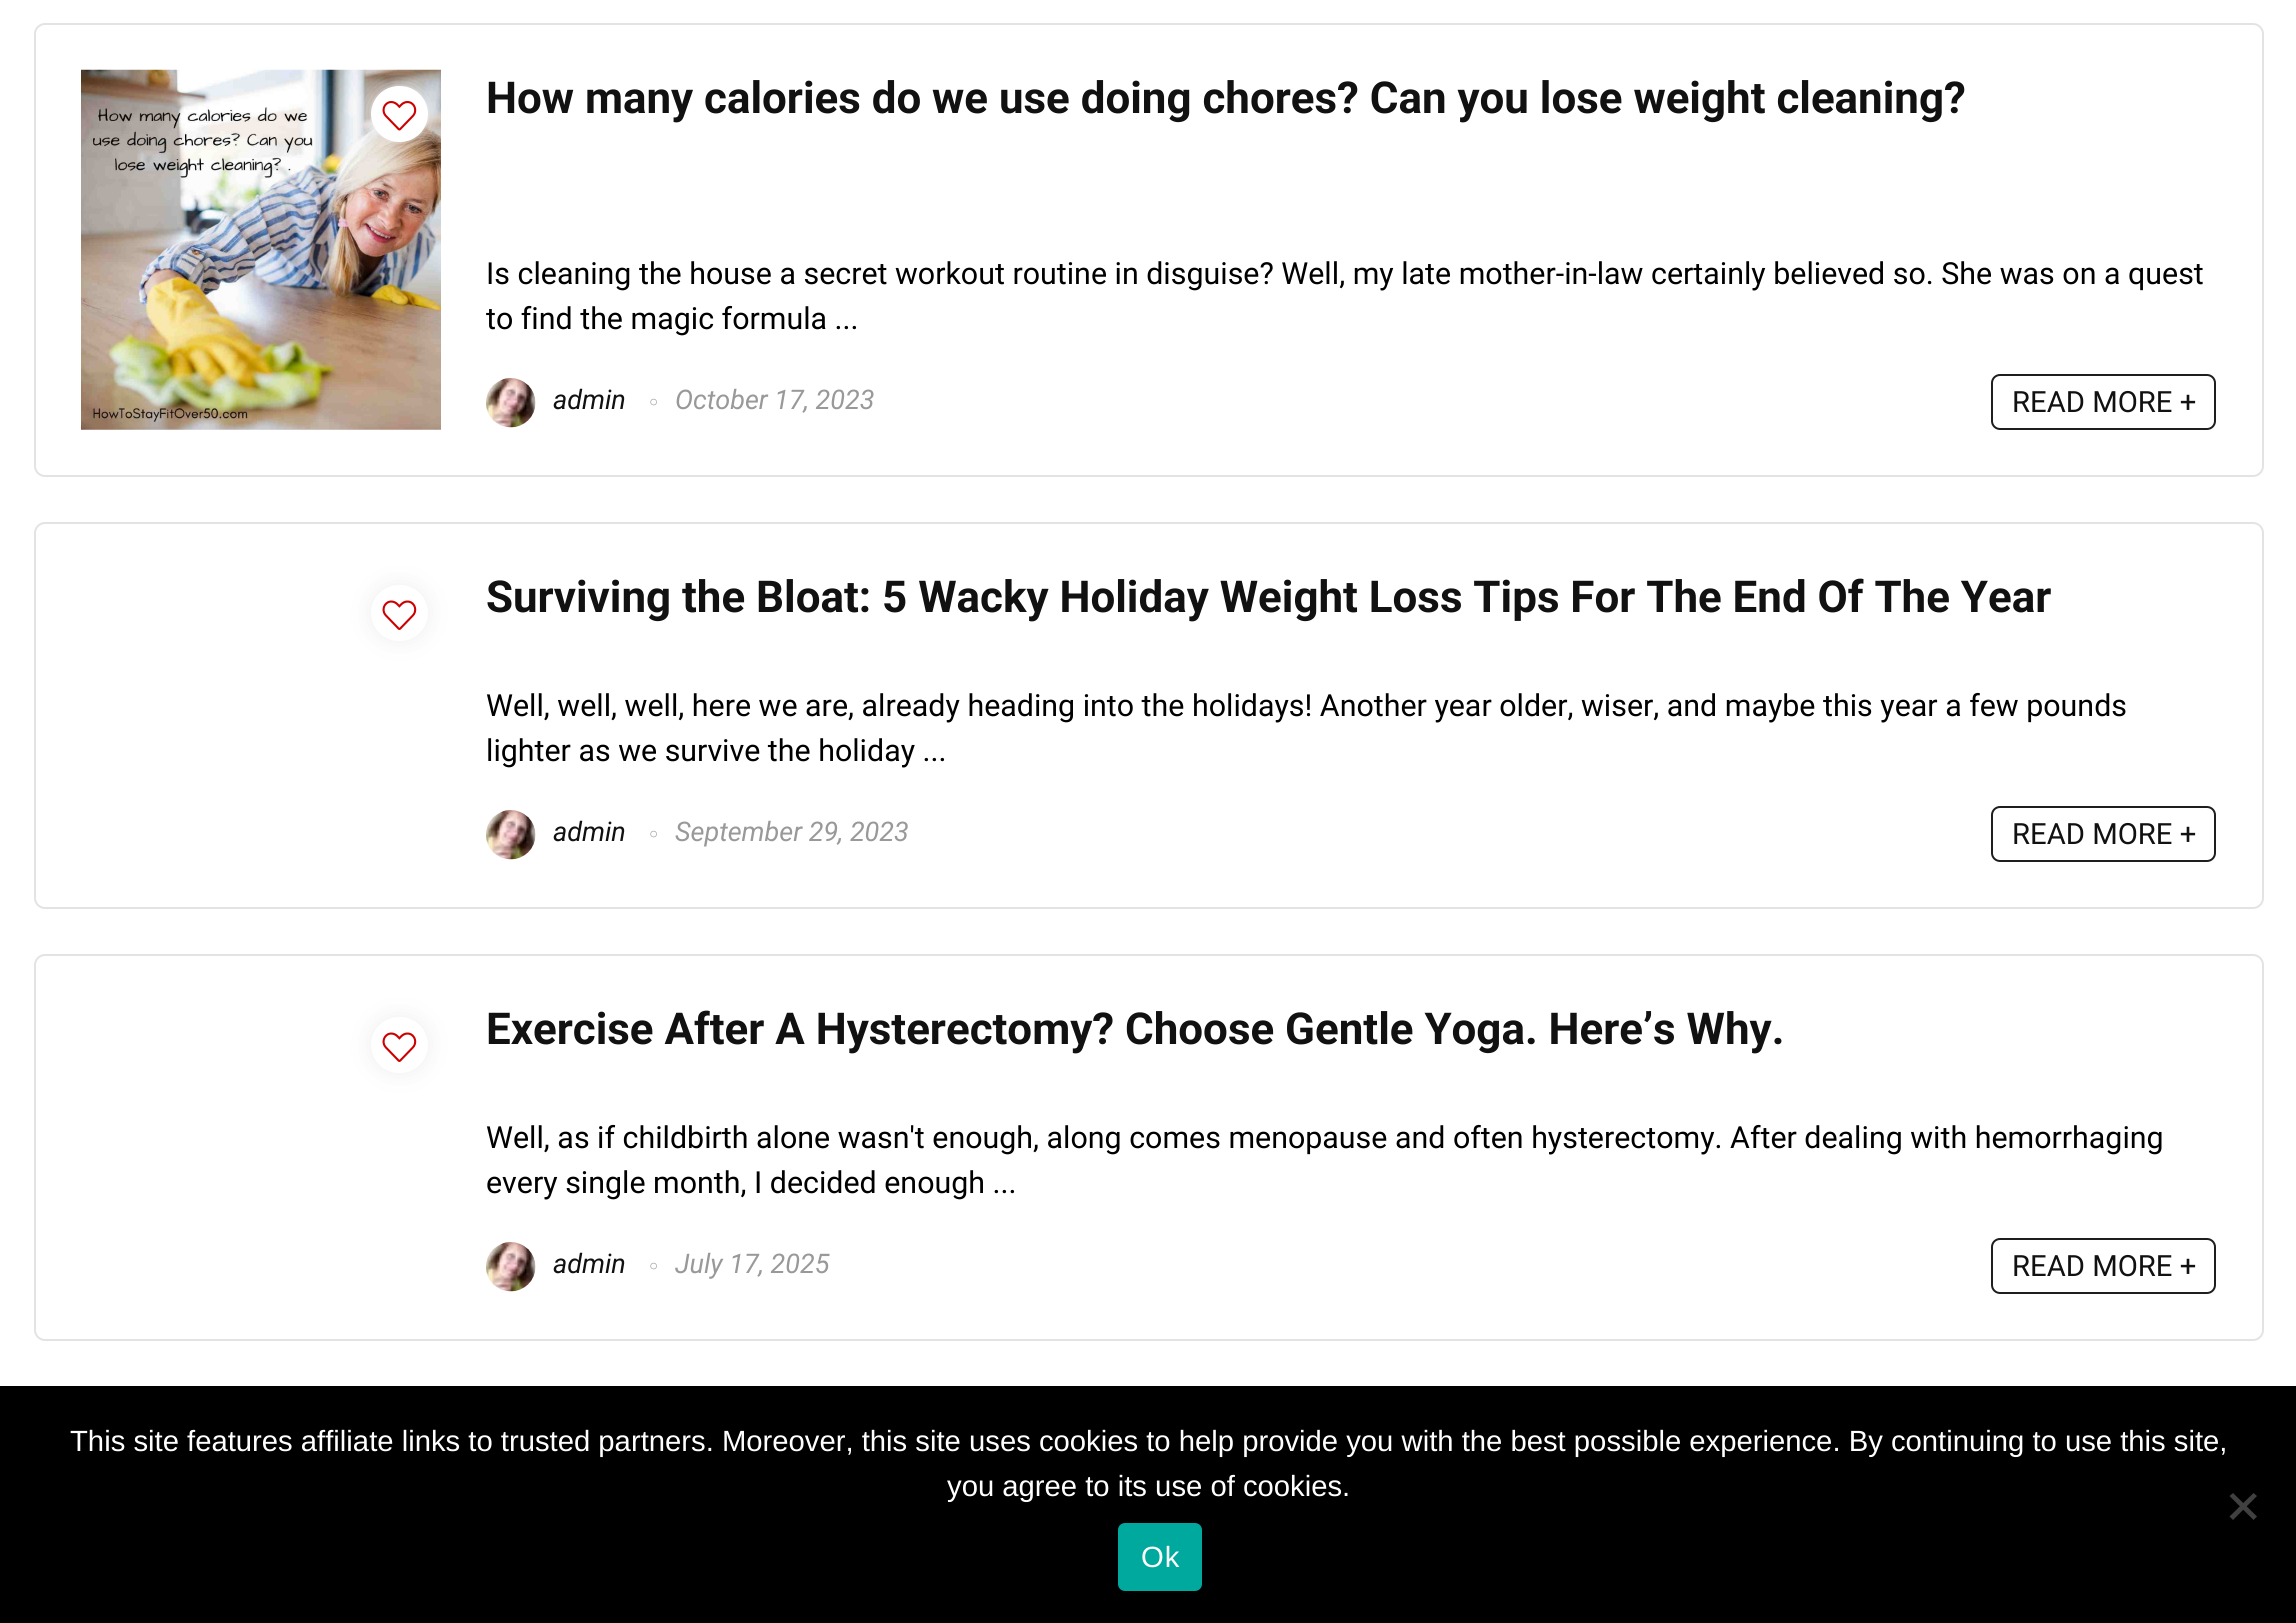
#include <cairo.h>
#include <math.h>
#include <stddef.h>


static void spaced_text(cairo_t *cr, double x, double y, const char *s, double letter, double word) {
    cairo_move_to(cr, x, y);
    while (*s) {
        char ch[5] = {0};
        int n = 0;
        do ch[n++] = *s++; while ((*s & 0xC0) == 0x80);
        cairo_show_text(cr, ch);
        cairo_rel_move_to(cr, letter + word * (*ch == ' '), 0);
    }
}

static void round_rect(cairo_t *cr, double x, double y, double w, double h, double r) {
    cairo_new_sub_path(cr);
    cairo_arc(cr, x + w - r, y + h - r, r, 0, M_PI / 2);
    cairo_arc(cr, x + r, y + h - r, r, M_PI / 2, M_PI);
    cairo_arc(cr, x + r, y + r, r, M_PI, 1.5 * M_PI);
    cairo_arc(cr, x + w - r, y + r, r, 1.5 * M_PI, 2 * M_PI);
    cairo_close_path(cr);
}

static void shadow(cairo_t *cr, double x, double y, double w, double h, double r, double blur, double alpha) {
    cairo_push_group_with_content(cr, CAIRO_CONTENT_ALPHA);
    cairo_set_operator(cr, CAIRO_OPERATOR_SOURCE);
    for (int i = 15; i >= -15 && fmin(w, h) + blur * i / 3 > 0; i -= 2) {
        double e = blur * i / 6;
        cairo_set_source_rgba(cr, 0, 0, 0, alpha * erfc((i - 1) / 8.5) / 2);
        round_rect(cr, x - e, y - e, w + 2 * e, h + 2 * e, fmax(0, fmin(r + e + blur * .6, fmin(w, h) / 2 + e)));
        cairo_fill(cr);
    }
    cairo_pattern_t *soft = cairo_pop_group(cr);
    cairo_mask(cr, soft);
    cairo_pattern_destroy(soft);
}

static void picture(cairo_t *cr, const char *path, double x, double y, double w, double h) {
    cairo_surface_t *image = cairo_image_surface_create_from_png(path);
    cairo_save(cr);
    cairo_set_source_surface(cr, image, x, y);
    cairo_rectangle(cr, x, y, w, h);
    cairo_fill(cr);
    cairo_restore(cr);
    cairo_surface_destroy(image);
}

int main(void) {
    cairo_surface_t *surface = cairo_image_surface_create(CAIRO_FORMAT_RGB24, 2296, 1623);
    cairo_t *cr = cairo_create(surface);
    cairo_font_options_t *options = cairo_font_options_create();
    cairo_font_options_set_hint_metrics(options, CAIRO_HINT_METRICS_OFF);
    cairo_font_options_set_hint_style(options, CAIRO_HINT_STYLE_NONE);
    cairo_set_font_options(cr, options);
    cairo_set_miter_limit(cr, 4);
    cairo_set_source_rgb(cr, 1, 1, 1);
    cairo_paint(cr);
    round_rect(cr, 35, 24, 2228, 452, 10);
    cairo_set_source_rgb(cr, 0.89, 0.89, 0.89);
    cairo_stroke(cr);
    picture(cr, "img2.png", 81, 69, 360, 361);
    cairo_set_source_rgb(cr, 0.937, 0.937, 0.937);
    shadow(cr, 371, 86, 57, 56, 28, 11, 1);
    cairo_set_source_rgb(cr, 1, 1, 1);
    round_rect(cr, 371, 86, 57, 56, 28);
    cairo_fill(cr);
    picture(cr, "img1.png", 382, 101, 35, 30);
    cairo_select_font_face(cr, "Roboto", CAIRO_FONT_SLANT_NORMAL, CAIRO_FONT_WEIGHT_BOLD);
    cairo_set_font_size(cr, 43.9);
    cairo_set_source_rgb(cr, 0.067, 0.067, 0.067);
    cairo_move_to(cr, 486, 113);
    cairo_show_text(cr, "How many calories do we use doing chores? Can you lose weight cleaning?");
    cairo_select_font_face(cr, "Roboto", CAIRO_FONT_SLANT_NORMAL, CAIRO_FONT_WEIGHT_NORMAL);
    cairo_set_font_size(cr, 30.38);
    cairo_set_source_rgb(cr, 0, 0, 0);
    cairo_move_to(cr, 486, 284);
    cairo_show_text(cr, "Is cleaning the house a secret workout routine in disguise? Well, my late mother-in-law certainly believed so. She was on a quest");
    cairo_move_to(cr, 486, 329);
    cairo_show_text(cr, "to find the magic formula ...");
    picture(cr, "img3.png", 486, 378, 50, 50);
    cairo_select_font_face(cr, "Roboto", CAIRO_FONT_SLANT_ITALIC, CAIRO_FONT_WEIGHT_NORMAL);
    cairo_set_font_size(cr, 27);
    cairo_set_source_rgb(cr, 0.067, 0.067, 0.067);
    cairo_move_to(cr, 553, 409);
    cairo_show_text(cr, "admin");
    picture(cr, "img4.png", 650, 398, 7, 8);
    cairo_set_source_rgb(cr, 0.6, 0.6, 0.6);
    cairo_move_to(cr, 675, 409);
    cairo_show_text(cr, "October 17, 2023");
    round_rect(cr, 1992, 375, 223, 54, 8);
    cairo_set_source_rgb(cr, 0.118, 0.118, 0.118);
    cairo_stroke(cr);
    cairo_select_font_face(cr, "Roboto", CAIRO_FONT_SLANT_NORMAL, CAIRO_FONT_WEIGHT_NORMAL);
    cairo_set_font_size(cr, 29.25);
    cairo_set_source_rgb(cr, 0.067, 0.067, 0.067);
    cairo_move_to(cr, 2012, 412);
    cairo_show_text(cr, "READ MORE +");
    round_rect(cr, 35, 523, 2228, 385, 10);
    cairo_set_source_rgb(cr, 0.89, 0.89, 0.89);
    cairo_stroke(cr);
    cairo_set_source_rgb(cr, 0.937, 0.937, 0.937);
    shadow(cr, 371, 585, 57, 56, 28, 11, 1);
    cairo_set_source_rgb(cr, 1, 1, 1);
    round_rect(cr, 371, 585, 57, 56, 28);
    cairo_fill(cr);
    picture(cr, "img5.png", 382, 600, 35, 30);
    cairo_select_font_face(cr, "Roboto", CAIRO_FONT_SLANT_NORMAL, CAIRO_FONT_WEIGHT_BOLD);
    cairo_set_font_size(cr, 43.9);
    cairo_set_source_rgb(cr, 0.067, 0.067, 0.067);
    cairo_move_to(cr, 486, 612);
    cairo_show_text(cr, "Surviving the Bloat: 5 Wacky Holiday Weight Loss Tips For The End Of The Year");
    cairo_select_font_face(cr, "Roboto", CAIRO_FONT_SLANT_NORMAL, CAIRO_FONT_WEIGHT_NORMAL);
    cairo_set_font_size(cr, 30.38);
    cairo_set_source_rgb(cr, 0, 0, 0);
    cairo_move_to(cr, 486, 716);
    cairo_show_text(cr, "Well, well, well, here we are, already heading into the holidays! Another year older, wiser, and maybe this year a few pounds");
    cairo_move_to(cr, 486, 761);
    cairo_show_text(cr, "lighter as we survive the holiday ...");
    picture(cr, "img6.png", 486, 810, 50, 50);
    cairo_select_font_face(cr, "Roboto", CAIRO_FONT_SLANT_ITALIC, CAIRO_FONT_WEIGHT_NORMAL);
    cairo_set_font_size(cr, 27);
    cairo_set_source_rgb(cr, 0.067, 0.067, 0.067);
    cairo_move_to(cr, 553, 841);
    cairo_show_text(cr, "admin");
    picture(cr, "img4.png", 650, 830, 7, 8);
    cairo_set_source_rgb(cr, 0.6, 0.6, 0.6);
    cairo_move_to(cr, 675, 841);
    cairo_show_text(cr, "September 29, 2023");
    round_rect(cr, 1992, 807, 223, 54, 8);
    cairo_set_source_rgb(cr, 0.118, 0.118, 0.118);
    cairo_stroke(cr);
    cairo_select_font_face(cr, "Roboto", CAIRO_FONT_SLANT_NORMAL, CAIRO_FONT_WEIGHT_NORMAL);
    cairo_set_font_size(cr, 29.25);
    cairo_set_source_rgb(cr, 0.067, 0.067, 0.067);
    cairo_move_to(cr, 2012, 844);
    cairo_show_text(cr, "READ MORE +");
    round_rect(cr, 35, 955, 2228, 385, 10);
    cairo_set_source_rgb(cr, 0.89, 0.89, 0.89);
    cairo_stroke(cr);
    cairo_set_source_rgb(cr, 0.937, 0.937, 0.937);
    shadow(cr, 371, 1017, 57, 56, 28, 11, 1);
    cairo_set_source_rgb(cr, 1, 1, 1);
    round_rect(cr, 371, 1017, 57, 56, 28);
    cairo_fill(cr);
    picture(cr, "img5.png", 382, 1032, 35, 30);
    cairo_select_font_face(cr, "Roboto", CAIRO_FONT_SLANT_NORMAL, CAIRO_FONT_WEIGHT_BOLD);
    cairo_set_font_size(cr, 43.9);
    cairo_set_source_rgb(cr, 0.067, 0.067, 0.067);
    cairo_move_to(cr, 486, 1044);
    cairo_show_text(cr, "Exercise After A Hysterectomy? Choose Gentle Yoga. Here’s Why.");
    cairo_select_font_face(cr, "Roboto", CAIRO_FONT_SLANT_NORMAL, CAIRO_FONT_WEIGHT_NORMAL);
    cairo_set_font_size(cr, 30.38);
    cairo_set_source_rgb(cr, 0, 0, 0);
    cairo_move_to(cr, 486, 1148);
    cairo_show_text(cr, "Well, as if childbirth alone wasn't enough, along comes menopause and often hysterectomy. After dealing with hemorrhaging");
    cairo_move_to(cr, 486, 1193);
    cairo_show_text(cr, "every single month, I decided enough ...");
    picture(cr, "img3.png", 486, 1242, 50, 50);
    cairo_select_font_face(cr, "Roboto", CAIRO_FONT_SLANT_ITALIC, CAIRO_FONT_WEIGHT_NORMAL);
    cairo_set_font_size(cr, 27);
    cairo_set_source_rgb(cr, 0.067, 0.067, 0.067);
    cairo_move_to(cr, 553, 1273);
    cairo_show_text(cr, "admin");
    picture(cr, "img4.png", 650, 1262, 7, 8);
    cairo_set_source_rgb(cr, 0.6, 0.6, 0.6);
    cairo_move_to(cr, 675, 1273);
    cairo_show_text(cr, "July 17, 2025");
    round_rect(cr, 1992, 1239, 223, 54, 8);
    cairo_set_source_rgb(cr, 0.118, 0.118, 0.118);
    cairo_stroke(cr);
    cairo_select_font_face(cr, "Roboto", CAIRO_FONT_SLANT_NORMAL, CAIRO_FONT_WEIGHT_NORMAL);
    cairo_set_font_size(cr, 29.25);
    cairo_set_source_rgb(cr, 0.067, 0.067, 0.067);
    cairo_move_to(cr, 2012, 1276);
    cairo_show_text(cr, "READ MORE +");
    cairo_set_source_rgb(cr, 0, 0, 0);
    cairo_rectangle(cr, 0, 1386, 2296, 237);
    cairo_fill(cr);
    cairo_select_font_face(cr, "Liberation Sans", CAIRO_FONT_SLANT_NORMAL, CAIRO_FONT_WEIGHT_NORMAL);
    cairo_set_source_rgb(cr, 1, 1, 1);
    cairo_move_to(cr, 70, 1451);
    cairo_show_text(cr, "This site features affiliate links to trusted partners. Moreover, this site uses cookies to help provide you with the best possible experience. By continuing to use this site,");
    cairo_move_to(cr, 947, 1496);
    cairo_show_text(cr, "you agree to its use of cookies.");
    cairo_set_source_rgb(cr, 0.251, 0.251, 0.251);
    cairo_new_path(cr);
    cairo_move_to(cr, 2253.5, 1493);
    cairo_line_to(cr, 2257, 1496);
    cairo_line_to(cr, 2233, 1520);
    cairo_line_to(cr, 2229.5, 1516.5);
    cairo_close_path(cr);
    cairo_fill(cr);
    cairo_new_path(cr);
    cairo_move_to(cr, 2229.5, 1496);
    cairo_line_to(cr, 2233, 1493);
    cairo_line_to(cr, 2257, 1516.5);
    cairo_line_to(cr, 2253.5, 1520);
    cairo_close_path(cr);
    cairo_fill(cr);
    cairo_set_source_rgb(cr, 0, 0.663, 0.616);
    round_rect(cr, 1118, 1523, 84, 68, 7);
    cairo_fill(cr);
    cairo_set_source_rgb(cr, 1, 1, 1);
    spaced_text(cr, 1141, 1567, "Ok", 1, 0);
    cairo_surface_write_to_png(surface, "page.png");
    cairo_font_options_destroy(options);
    cairo_destroy(cr);
    cairo_surface_destroy(surface);
    return 0;
}
